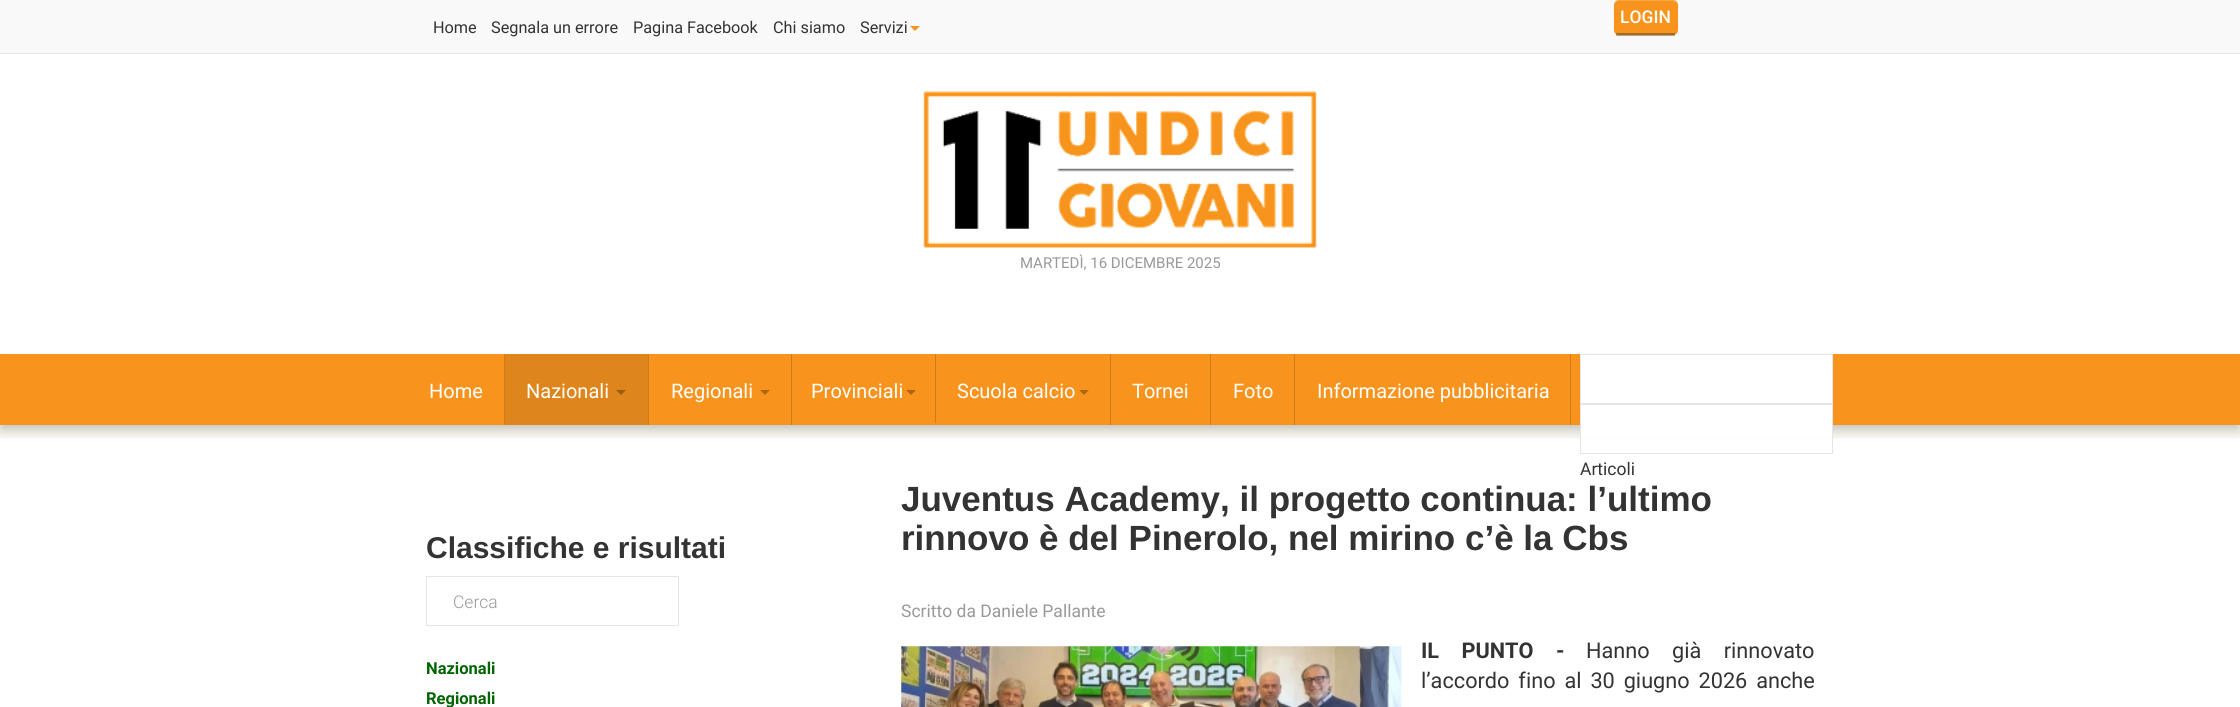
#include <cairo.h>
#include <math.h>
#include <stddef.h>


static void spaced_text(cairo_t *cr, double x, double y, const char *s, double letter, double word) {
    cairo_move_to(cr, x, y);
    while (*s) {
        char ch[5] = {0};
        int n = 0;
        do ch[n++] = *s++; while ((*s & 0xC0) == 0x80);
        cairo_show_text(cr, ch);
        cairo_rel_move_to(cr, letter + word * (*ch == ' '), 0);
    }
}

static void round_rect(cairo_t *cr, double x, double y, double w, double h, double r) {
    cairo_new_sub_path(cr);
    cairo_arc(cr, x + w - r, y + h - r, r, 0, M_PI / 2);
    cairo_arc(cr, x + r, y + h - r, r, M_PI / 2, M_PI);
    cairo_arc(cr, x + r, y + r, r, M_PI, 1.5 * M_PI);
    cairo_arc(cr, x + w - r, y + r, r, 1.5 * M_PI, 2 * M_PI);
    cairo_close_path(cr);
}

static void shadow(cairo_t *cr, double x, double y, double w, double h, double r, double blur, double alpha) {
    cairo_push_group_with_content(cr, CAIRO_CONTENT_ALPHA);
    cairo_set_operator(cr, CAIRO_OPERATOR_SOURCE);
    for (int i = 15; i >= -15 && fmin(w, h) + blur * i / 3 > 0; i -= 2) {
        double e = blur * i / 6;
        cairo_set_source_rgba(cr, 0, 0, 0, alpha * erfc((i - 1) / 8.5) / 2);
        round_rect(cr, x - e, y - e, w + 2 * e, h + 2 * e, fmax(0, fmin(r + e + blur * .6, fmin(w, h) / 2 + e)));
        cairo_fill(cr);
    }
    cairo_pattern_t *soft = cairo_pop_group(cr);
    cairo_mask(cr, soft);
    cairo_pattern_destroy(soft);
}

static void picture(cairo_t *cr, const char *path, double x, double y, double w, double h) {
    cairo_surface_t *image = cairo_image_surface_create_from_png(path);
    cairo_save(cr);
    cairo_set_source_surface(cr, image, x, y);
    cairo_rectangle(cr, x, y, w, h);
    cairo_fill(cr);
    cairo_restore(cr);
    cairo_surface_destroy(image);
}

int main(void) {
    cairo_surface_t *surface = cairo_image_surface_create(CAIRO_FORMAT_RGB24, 2240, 707);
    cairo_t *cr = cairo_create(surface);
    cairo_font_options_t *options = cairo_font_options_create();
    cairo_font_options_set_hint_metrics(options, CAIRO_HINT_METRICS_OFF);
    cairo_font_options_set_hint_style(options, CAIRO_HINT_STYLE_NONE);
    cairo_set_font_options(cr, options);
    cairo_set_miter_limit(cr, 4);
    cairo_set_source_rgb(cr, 1, 1, 1);
    cairo_paint(cr);
    cairo_set_source_rgb(cr, 0.973, 0.973, 0.973);
    cairo_rectangle(cr, 0, 0, 2240, 53);
    cairo_fill(cr);
    cairo_set_source_rgb(cr, 0.898, 0.898, 0.898);
    cairo_rectangle(cr, 0, 53, 2240, 1);
    cairo_fill(cr);
    cairo_set_source_rgb(cr, 0, 0, 0);
    shadow(cr, 1614, 1, 64, 35, 5, 1, 0.05);
    cairo_set_source_rgb(cr, 0.969, 0.58, 0.118);
    round_rect(cr, 1614, 0, 64, 35, 5);
    cairo_fill(cr);
    cairo_set_source_rgba(cr, 1, 1, 1, 0.2);
    cairo_new_path(cr);
    cairo_move_to(cr, 1619, 1);
    cairo_line_to(cr, 1672, 1);
    cairo_curve_to(cr, 1674, 1, 1676, 2, 1677, 4);
    cairo_curve_to(cr, 1677, 2, 1676, 1, 1674, 0);
    cairo_line_to(cr, 1628, 0);
    cairo_curve_to(cr, 1611, 0, 1614, 1, 1614, 18);
    cairo_line_to(cr, 1614, 31);
    cairo_line_to(cr, 1614, 6);
    cairo_curve_to(cr, 1614, 3, 1616, 1, 1619, 1);
    cairo_close_path(cr);
    cairo_fill(cr);
    cairo_set_source_rgba(cr, 0, 0, 0, 0.3);
    cairo_rectangle(cr, 1616, 33, 59, 3);
    cairo_fill(cr);
    cairo_select_font_face(cr, "Roboto Medium", CAIRO_FONT_SLANT_NORMAL, CAIRO_FONT_WEIGHT_NORMAL);
    cairo_set_font_size(cr, 17.5);
    cairo_set_source_rgb(cr, 1, 1, 1);
    cairo_move_to(cr, 1620, 23);
    cairo_show_text(cr, "LOGIN");
    cairo_select_font_face(cr, "Roboto", CAIRO_FONT_SLANT_NORMAL, CAIRO_FONT_WEIGHT_NORMAL);
    cairo_set_font_size(cr, 16.25);
    cairo_set_source_rgb(cr, 0.2, 0.2, 0.2);
    cairo_move_to(cr, 433, 33);
    cairo_show_text(cr, "Home");
    cairo_move_to(cr, 491, 33);
    cairo_show_text(cr, "Segnala un errore");
    cairo_move_to(cr, 633, 33);
    cairo_show_text(cr, "Pagina Facebook");
    cairo_move_to(cr, 773, 33);
    cairo_show_text(cr, "Chi siamo");
    cairo_move_to(cr, 860, 33);
    cairo_show_text(cr, "Servizi");
    cairo_set_source_rgb(cr, 0.969, 0.58, 0.118);
    cairo_new_path(cr);
    cairo_move_to(cr, 910, 26);
    cairo_line_to(cr, 920, 26);
    cairo_line_to(cr, 915, 31);
    cairo_close_path(cr);
    cairo_fill(cr);
    picture(cr, "img1.png", 923, 91, 394, 157);
    cairo_set_font_size(cr, 15);
    cairo_set_source_rgb(cr, 0.6, 0.6, 0.6);
    cairo_move_to(cr, 1020, 268);
    cairo_show_text(cr, "MARTEDÌ, 16 DICEMBRE 2025");
    cairo_set_source_rgb(cr, 0.965, 0.961, 0.941);
    cairo_rectangle(cr, 0, 425, 2240, 13);
    cairo_fill(cr);
    cairo_set_source_rgb(cr, 0, 0, 0);
    shadow(cr, 1, 361, 2238, 69, 0, 5, 0.2);
    cairo_set_source_rgb(cr, 0.969, 0.58, 0.118);
    cairo_rectangle(cr, 0, 354, 2240, 71);
    cairo_fill(cr);
    cairo_set_source_rgb(cr, 0.812, 0.486, 0.098);
    cairo_rectangle(cr, 504, 354, 1, 71);
    cairo_fill(cr);
    cairo_set_font_size(cr, 20);
    cairo_set_source_rgb(cr, 1, 1, 1);
    cairo_move_to(cr, 429, 398);
    cairo_show_text(cr, "Home");
    cairo_set_source_rgb(cr, 0.812, 0.486, 0.098);
    cairo_rectangle(cr, 648, 354, 1, 71);
    cairo_fill(cr);
    cairo_set_source_rgb(cr, 0.871, 0.522, 0.106);
    cairo_rectangle(cr, 505, 354, 143, 71);
    cairo_fill(cr);
    cairo_set_source_rgb(cr, 1, 1, 1);
    cairo_move_to(cr, 526, 398);
    cairo_show_text(cr, "Nazionali");
    cairo_set_source_rgb(cr, 0.608, 0.365, 0.075);
    cairo_new_path(cr);
    cairo_move_to(cr, 616, 390);
    cairo_line_to(cr, 626, 390);
    cairo_line_to(cr, 621, 395);
    cairo_close_path(cr);
    cairo_fill(cr);
    cairo_set_source_rgb(cr, 0.812, 0.486, 0.098);
    cairo_rectangle(cr, 791, 354, 1, 71);
    cairo_fill(cr);
    cairo_set_source_rgb(cr, 1, 1, 1);
    cairo_move_to(cr, 671, 398);
    cairo_show_text(cr, "Regionali");
    cairo_set_source_rgb(cr, 0.678, 0.408, 0.082);
    cairo_new_path(cr);
    cairo_move_to(cr, 760, 390);
    cairo_line_to(cr, 770, 390);
    cairo_line_to(cr, 765, 395);
    cairo_close_path(cr);
    cairo_fill(cr);
    cairo_set_source_rgb(cr, 0.812, 0.486, 0.098);
    cairo_rectangle(cr, 935, 354, 1, 69);
    cairo_fill(cr);
    cairo_set_source_rgb(cr, 1, 1, 1);
    cairo_move_to(cr, 811, 398);
    cairo_show_text(cr, "Provinciali");
    cairo_set_source_rgb(cr, 0.678, 0.408, 0.082);
    cairo_new_path(cr);
    cairo_move_to(cr, 906, 390);
    cairo_line_to(cr, 916, 390);
    cairo_line_to(cr, 911, 395);
    cairo_close_path(cr);
    cairo_fill(cr);
    cairo_set_source_rgb(cr, 0.812, 0.486, 0.098);
    cairo_rectangle(cr, 1110, 354, 1, 71);
    cairo_fill(cr);
    cairo_set_source_rgb(cr, 1, 1, 1);
    cairo_move_to(cr, 957, 398);
    cairo_show_text(cr, "Scuola calcio");
    cairo_set_source_rgb(cr, 0.678, 0.408, 0.082);
    cairo_new_path(cr);
    cairo_move_to(cr, 1079, 390);
    cairo_line_to(cr, 1089, 390);
    cairo_line_to(cr, 1084, 395);
    cairo_close_path(cr);
    cairo_fill(cr);
    cairo_set_source_rgb(cr, 0.812, 0.486, 0.098);
    cairo_rectangle(cr, 1210, 354, 1, 71);
    cairo_fill(cr);
    cairo_set_source_rgb(cr, 1, 1, 1);
    cairo_move_to(cr, 1132, 398);
    cairo_show_text(cr, "Tornei");
    cairo_set_source_rgb(cr, 0.812, 0.486, 0.098);
    cairo_rectangle(cr, 1294, 354, 1, 71);
    cairo_fill(cr);
    cairo_set_source_rgb(cr, 1, 1, 1);
    cairo_move_to(cr, 1233, 398);
    cairo_show_text(cr, "Foto");
    cairo_set_source_rgb(cr, 0.812, 0.486, 0.098);
    cairo_rectangle(cr, 1570, 354, 1, 71);
    cairo_fill(cr);
    cairo_set_source_rgb(cr, 1, 1, 1);
    cairo_move_to(cr, 1317, 398);
    cairo_show_text(cr, "Informazione pubblicitaria");
    cairo_rectangle(cr, 1580.5, 354.5, 252, 49);
    cairo_fill_preserve(cr);
    cairo_set_source_rgb(cr, 0.898, 0.898, 0.898);
    cairo_set_line_width(cr, 1);
    cairo_stroke(cr);
    cairo_set_source_rgb(cr, 1, 1, 1);
    cairo_rectangle(cr, 1581, 405, 251, 33);
    cairo_fill(cr);
    cairo_rectangle(cr, 1580.5, 404.5, 252, 49);
    cairo_set_source_rgb(cr, 0.898, 0.898, 0.898);
    cairo_stroke(cr);
    cairo_set_font_size(cr, 17.5);
    cairo_set_source_rgb(cr, 0.2, 0.2, 0.2);
    cairo_move_to(cr, 1580, 475);
    cairo_show_text(cr, "Articoli");
    cairo_select_font_face(cr, "Liberation Sans", CAIRO_FONT_SLANT_NORMAL, CAIRO_FONT_WEIGHT_BOLD);
    cairo_set_font_size(cr, 30);
    cairo_move_to(cr, 426, 558);
    cairo_show_text(cr, "Classifiche e risultati");
    cairo_rectangle(cr, 426.5, 576.5, 252, 49);
    cairo_set_source_rgb(cr, 0.898, 0.898, 0.898);
    cairo_stroke(cr);
    cairo_select_font_face(cr, "Roboto Light", CAIRO_FONT_SLANT_NORMAL, CAIRO_FONT_WEIGHT_NORMAL);
    cairo_set_font_size(cr, 17.5);
    cairo_set_source_rgb(cr, 0.6, 0.6, 0.6);
    cairo_move_to(cr, 453, 608);
    cairo_show_text(cr, "Cerca");
    cairo_select_font_face(cr, "Roboto", CAIRO_FONT_SLANT_NORMAL, CAIRO_FONT_WEIGHT_BOLD);
    cairo_set_font_size(cr, 16.5);
    cairo_set_source_rgb(cr, 0, 0.392, 0);
    cairo_move_to(cr, 426, 674);
    cairo_show_text(cr, "Nazionali");
    cairo_move_to(cr, 426, 704);
    cairo_show_text(cr, "Regionali");
    cairo_select_font_face(cr, "Liberation Sans", CAIRO_FONT_SLANT_NORMAL, CAIRO_FONT_WEIGHT_BOLD);
    cairo_set_font_size(cr, 35);
    cairo_set_source_rgb(cr, 0.2, 0.2, 0.2);
    cairo_move_to(cr, 901, 511);
    cairo_show_text(cr, "Juventus Academy, il progetto continua: l’ultimo");
    cairo_move_to(cr, 901, 550);
    cairo_show_text(cr, "rinnovo è del Pinerolo, nel mirino c’è la Cbs");
    cairo_select_font_face(cr, "Roboto", CAIRO_FONT_SLANT_NORMAL, CAIRO_FONT_WEIGHT_NORMAL);
    cairo_set_font_size(cr, 17.5);
    cairo_set_source_rgb(cr, 0.6, 0.6, 0.6);
    cairo_move_to(cr, 901, 617);
    cairo_show_text(cr, "Scritto da Daniele Pallante");
    picture(cr, "img2.png", 901, 646, 501, 61);
    cairo_select_font_face(cr, "Roboto", CAIRO_FONT_SLANT_NORMAL, CAIRO_FONT_WEIGHT_BOLD);
    cairo_set_font_size(cr, 21.7);
    cairo_set_source_rgb(cr, 0.2, 0.2, 0.2);
    spaced_text(cr, 1421, 658, "IL PUNTO -", 0, 17);
    cairo_select_font_face(cr, "Roboto", CAIRO_FONT_SLANT_NORMAL, CAIRO_FONT_WEIGHT_NORMAL);
    spaced_text(cr, 1586, 658, "Hanno già rinnovato", 0, 17);
    spaced_text(cr, 1421, 688, "l’accordo fino al 30 giugno 2026 anche", 0, 3.5);
    cairo_surface_write_to_png(surface, "page.png");
    cairo_font_options_destroy(options);
    cairo_destroy(cr);
    cairo_surface_destroy(surface);
    return 0;
}
